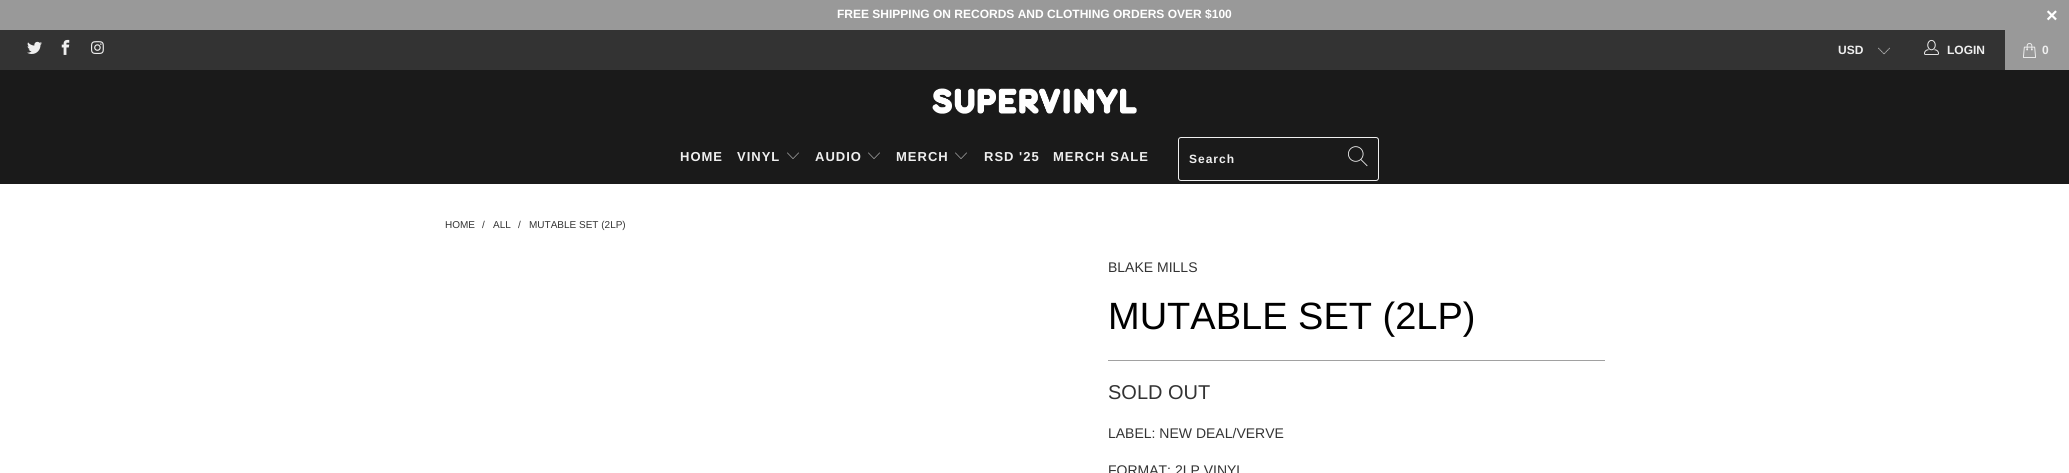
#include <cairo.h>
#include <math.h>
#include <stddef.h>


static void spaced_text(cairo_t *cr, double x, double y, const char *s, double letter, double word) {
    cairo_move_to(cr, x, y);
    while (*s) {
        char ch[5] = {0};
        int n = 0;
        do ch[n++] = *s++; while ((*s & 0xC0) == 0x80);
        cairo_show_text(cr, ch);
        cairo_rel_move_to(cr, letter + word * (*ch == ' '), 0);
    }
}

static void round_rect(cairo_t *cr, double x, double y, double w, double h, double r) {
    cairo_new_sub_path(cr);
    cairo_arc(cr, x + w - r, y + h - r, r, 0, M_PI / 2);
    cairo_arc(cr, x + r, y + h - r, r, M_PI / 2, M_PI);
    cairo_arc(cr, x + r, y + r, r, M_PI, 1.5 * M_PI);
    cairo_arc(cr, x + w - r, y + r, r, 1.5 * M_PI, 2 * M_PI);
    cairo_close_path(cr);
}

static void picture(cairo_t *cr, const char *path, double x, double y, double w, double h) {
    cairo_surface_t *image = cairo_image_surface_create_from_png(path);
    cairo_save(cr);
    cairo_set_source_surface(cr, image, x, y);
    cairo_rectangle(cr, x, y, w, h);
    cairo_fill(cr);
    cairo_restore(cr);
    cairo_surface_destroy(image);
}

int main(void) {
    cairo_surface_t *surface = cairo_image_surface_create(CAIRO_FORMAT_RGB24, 2069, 473);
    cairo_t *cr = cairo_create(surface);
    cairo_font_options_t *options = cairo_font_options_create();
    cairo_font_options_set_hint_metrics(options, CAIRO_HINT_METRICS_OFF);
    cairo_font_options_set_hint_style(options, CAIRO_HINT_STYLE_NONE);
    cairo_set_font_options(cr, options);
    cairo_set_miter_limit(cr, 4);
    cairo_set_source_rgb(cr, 1, 1, 1);
    cairo_paint(cr);
    cairo_set_source_rgb(cr, 0.6, 0.6, 0.6);
    cairo_rectangle(cr, 0, 0, 2069, 30);
    cairo_fill(cr);
    cairo_select_font_face(cr, "Liberation Sans", CAIRO_FONT_SLANT_NORMAL, CAIRO_FONT_WEIGHT_BOLD);
    cairo_set_font_size(cr, 12);
    cairo_set_source_rgb(cr, 1, 1, 1);
    cairo_move_to(cr, 837, 18);
    cairo_show_text(cr, "FREE SHIPPING ON RECORDS AND CLOTHING ORDERS OVER $100");
    cairo_set_font_size(cr, 20);
    cairo_move_to(cr, 2046, 22);
    cairo_show_text(cr, "×");
    cairo_set_source_rgb(cr, 0.2, 0.2, 0.2);
    cairo_rectangle(cr, 0, 30, 2005, 40);
    cairo_fill(cr);
    picture(cr, "img1.png", 27, 41, 15, 13);
    picture(cr, "img2.png", 61, 39, 9, 16);
    picture(cr, "img3.png", 91, 41, 13, 13);
    picture(cr, "img4.png", 1878, 47, 12, 8);
    cairo_set_font_size(cr, 12);
    cairo_set_source_rgb(cr, 0.937, 0.937, 0.937);
    cairo_move_to(cr, 1838, 54);
    cairo_show_text(cr, "USD");
    picture(cr, "img5.png", 1924, 39, 15, 16);
    cairo_move_to(cr, 1947, 54);
    cairo_show_text(cr, "LOGIN");
    cairo_set_source_rgb(cr, 0.6, 0.6, 0.6);
    cairo_rectangle(cr, 2005, 30, 64, 40);
    cairo_fill(cr);
    picture(cr, "img6.png", 2023, 43, 13, 15);
    cairo_set_source_rgb(cr, 0.937, 0.937, 0.937);
    cairo_move_to(cr, 2042, 54);
    cairo_show_text(cr, "0");
    cairo_set_source_rgb(cr, 0.102, 0.102, 0.102);
    cairo_rectangle(cr, 0, 70, 2069, 114);
    cairo_fill(cr);
    picture(cr, "img7.png", 932, 88, 205, 26);
    cairo_set_font_size(cr, 13);
    cairo_set_source_rgb(cr, 0.937, 0.937, 0.937);
    spaced_text(cr, 680, 161, "HOME", 1, 0);
    spaced_text(cr, 737, 161, "VINYL", 1, 0);
    picture(cr, "img8.png", 787, 152, 12, 7);
    spaced_text(cr, 815, 161, "AUDIO", 1, 0);
    picture(cr, "img8.png", 868, 152, 12, 7);
    spaced_text(cr, 896, 161, "MERCH", 1, 0);
    picture(cr, "img8.png", 955, 152, 12, 7);
    spaced_text(cr, 984, 161, "RSD '25", 1, 0);
    spaced_text(cr, 1053, 161, "MERCH SALE", 1, 0);
    round_rect(cr, 1178.5, 137.5, 200, 43, 2.5);
    cairo_set_line_width(cr, 1);
    cairo_stroke(cr);
    cairo_set_font_size(cr, 12);
    spaced_text(cr, 1189, 163, "Search", 1, 0);
    picture(cr, "img9.png", 1348, 146, 20, 21);
    cairo_select_font_face(cr, "Liberation Sans", CAIRO_FONT_SLANT_NORMAL, CAIRO_FONT_WEIGHT_NORMAL);
    cairo_set_font_size(cr, 10);
    cairo_set_source_rgb(cr, 0.2, 0.2, 0.2);
    cairo_move_to(cr, 445, 228);
    cairo_show_text(cr, "HOME");
    cairo_move_to(cr, 482, 228);
    cairo_show_text(cr, "/");
    cairo_move_to(cr, 493, 228);
    cairo_show_text(cr, "ALL");
    cairo_move_to(cr, 518, 228);
    cairo_show_text(cr, "/");
    cairo_move_to(cr, 529, 228);
    cairo_show_text(cr, "MUTABLE SET (2LP)");
    cairo_set_font_size(cr, 14);
    cairo_move_to(cr, 1108, 272);
    cairo_show_text(cr, "BLAKE MILLS");
    cairo_set_font_size(cr, 38);
    cairo_set_source_rgb(cr, 0, 0, 0);
    cairo_move_to(cr, 1108, 329);
    cairo_show_text(cr, "MUTABLE SET (2LP)");
    cairo_set_source_rgb(cr, 0.631, 0.631, 0.631);
    cairo_rectangle(cr, 1108, 360, 497, 1);
    cairo_fill(cr);
    cairo_set_font_size(cr, 20);
    cairo_set_source_rgb(cr, 0.2, 0.2, 0.2);
    cairo_move_to(cr, 1108, 399);
    cairo_show_text(cr, "SOLD OUT");
    cairo_set_font_size(cr, 14);
    cairo_move_to(cr, 1108, 438);
    cairo_show_text(cr, "LABEL: NEW DEAL/VERVE");
    cairo_move_to(cr, 1108, 475);
    cairo_show_text(cr, "FORMAT: 2LP VINYL");
    cairo_surface_write_to_png(surface, "page.png");
    cairo_font_options_destroy(options);
    cairo_destroy(cr);
    cairo_surface_destroy(surface);
    return 0;
}
